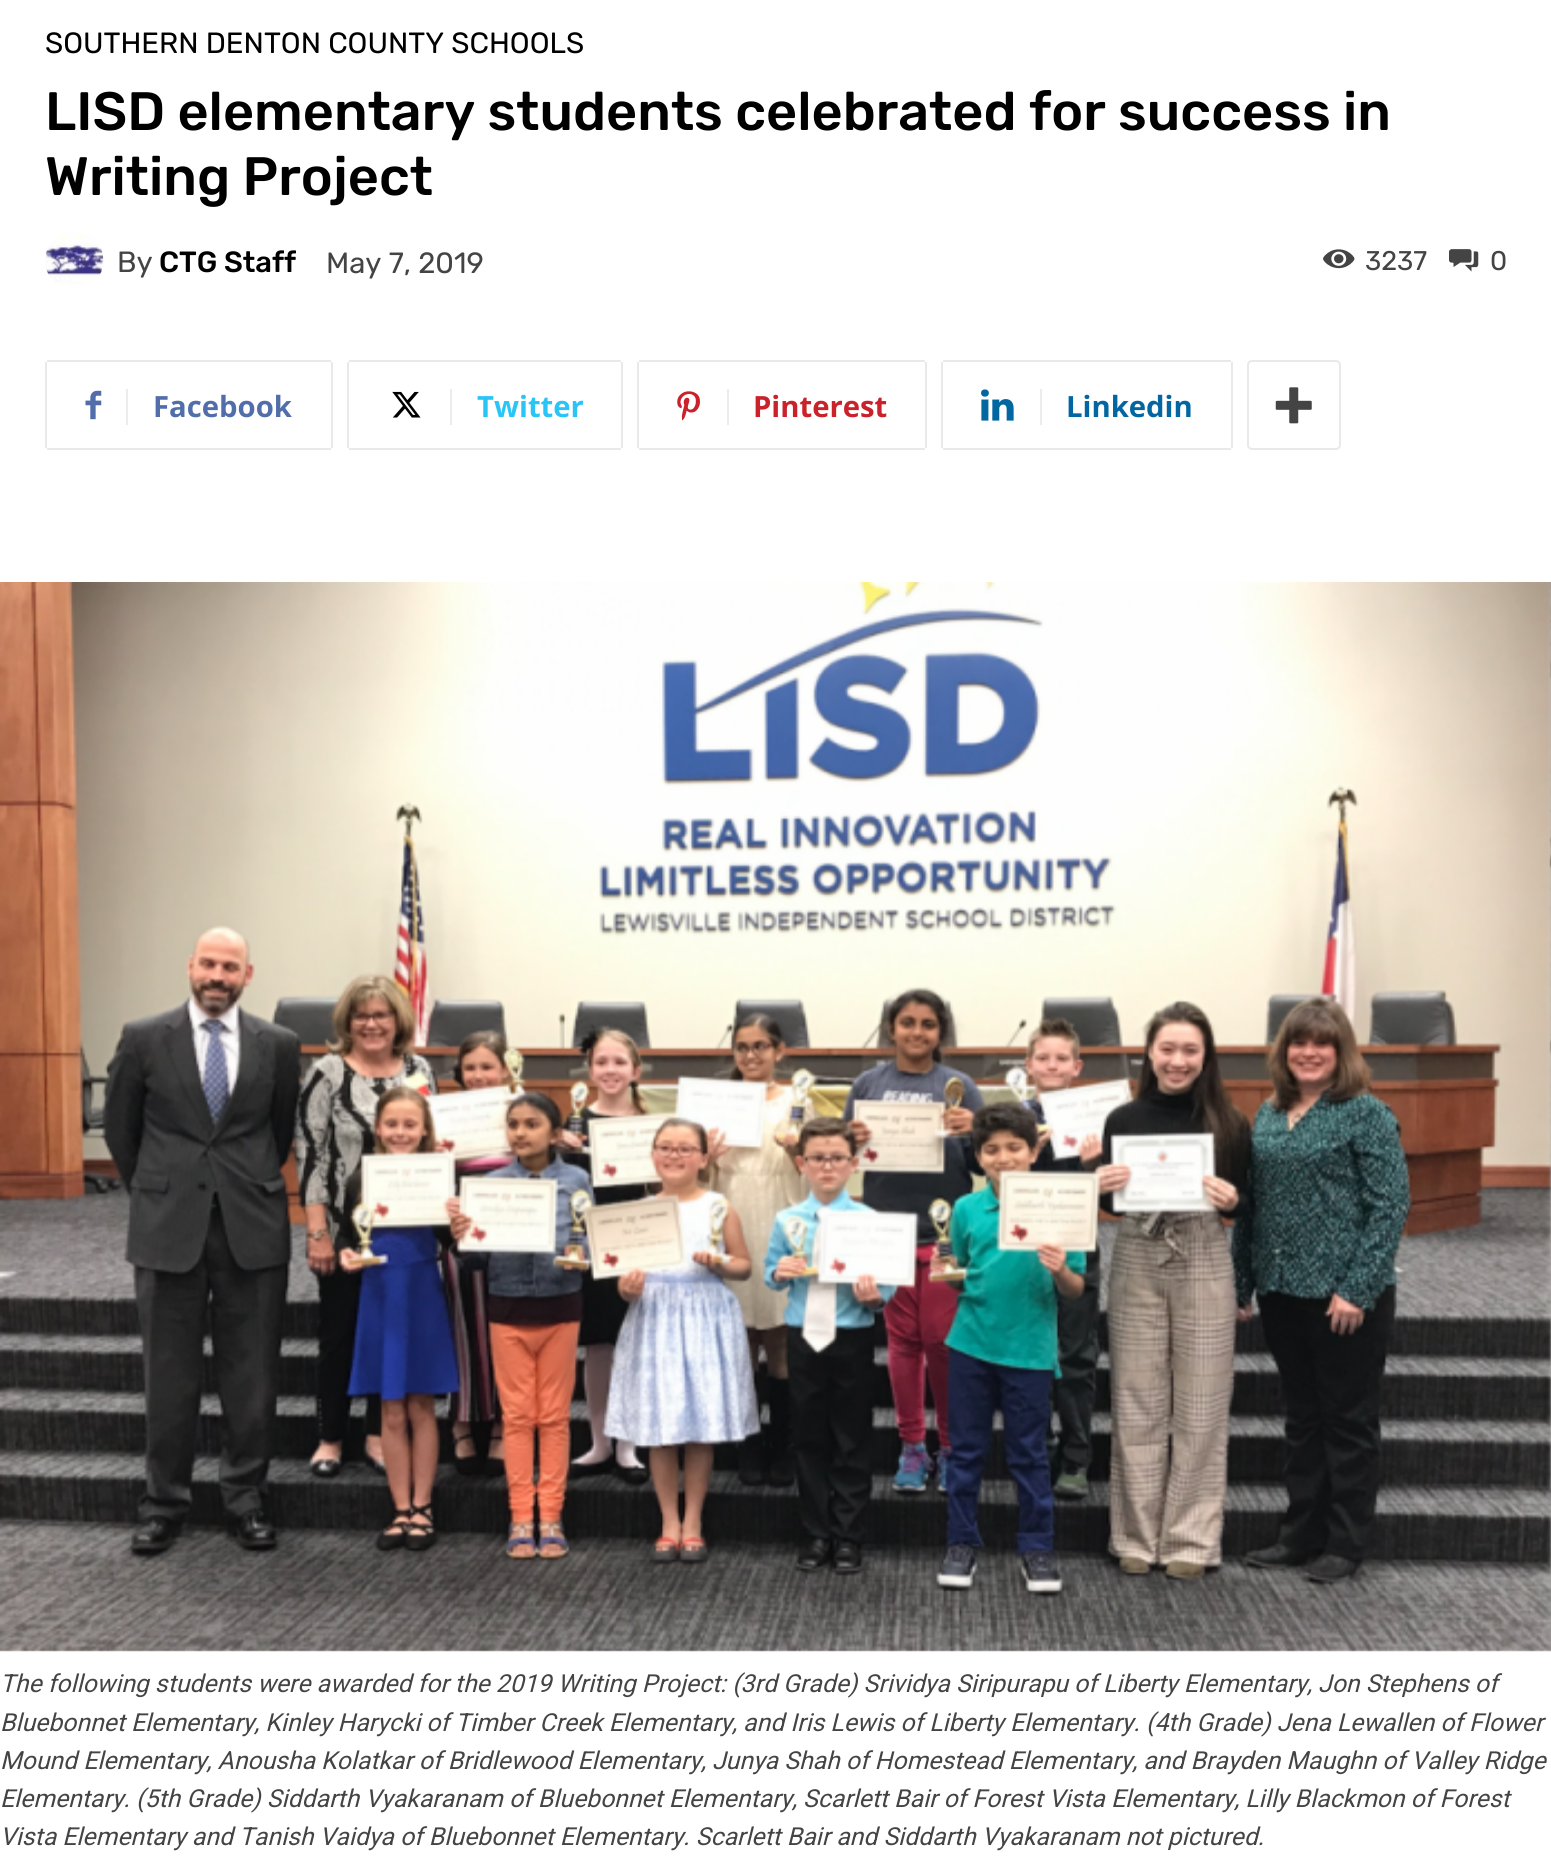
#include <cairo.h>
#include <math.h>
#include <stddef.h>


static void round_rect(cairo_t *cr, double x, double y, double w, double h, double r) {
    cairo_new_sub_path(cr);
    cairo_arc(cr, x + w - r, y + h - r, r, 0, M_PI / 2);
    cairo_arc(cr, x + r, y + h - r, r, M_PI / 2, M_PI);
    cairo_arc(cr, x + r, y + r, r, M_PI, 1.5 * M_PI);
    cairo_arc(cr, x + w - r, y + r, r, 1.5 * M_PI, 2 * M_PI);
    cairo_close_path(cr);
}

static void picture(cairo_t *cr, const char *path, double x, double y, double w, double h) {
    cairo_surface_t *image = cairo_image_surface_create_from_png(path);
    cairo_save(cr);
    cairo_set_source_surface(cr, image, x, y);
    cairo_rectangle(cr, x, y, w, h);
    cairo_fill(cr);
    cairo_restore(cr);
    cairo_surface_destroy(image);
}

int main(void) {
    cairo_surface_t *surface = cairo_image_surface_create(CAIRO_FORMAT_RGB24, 1551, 1871);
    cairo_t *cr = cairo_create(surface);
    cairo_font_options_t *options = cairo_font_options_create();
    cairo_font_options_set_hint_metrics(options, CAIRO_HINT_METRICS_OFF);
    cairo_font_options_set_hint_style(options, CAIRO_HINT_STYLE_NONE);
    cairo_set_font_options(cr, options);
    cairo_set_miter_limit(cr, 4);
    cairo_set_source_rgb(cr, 1, 1, 1);
    cairo_paint(cr);
    cairo_select_font_face(cr, "Rubik", CAIRO_FONT_SLANT_NORMAL, CAIRO_FONT_WEIGHT_NORMAL);
    cairo_set_font_size(cr, 29.25);
    cairo_set_source_rgb(cr, 0, 0, 0);
    cairo_move_to(cr, 45, 53);
    cairo_show_text(cr, "SOUTHERN DENTON COUNTY SCHOOLS");
    cairo_select_font_face(cr, "Rubik Medium", CAIRO_FONT_SLANT_NORMAL, CAIRO_FONT_WEIGHT_NORMAL);
    cairo_set_font_size(cr, 54);
    cairo_move_to(cr, 45, 130);
    cairo_show_text(cr, "LISD elementary students celebrated for success in");
    cairo_move_to(cr, 45, 195);
    cairo_show_text(cr, "Writing Project");
    picture(cr, "img1.png", 45, 232, 59, 53);
    cairo_select_font_face(cr, "Rubik", CAIRO_FONT_SLANT_NORMAL, CAIRO_FONT_WEIGHT_NORMAL);
    cairo_set_font_size(cr, 29.25);
    cairo_set_source_rgb(cr, 0.267, 0.267, 0.267);
    cairo_move_to(cr, 117, 272);
    cairo_show_text(cr, "By");
    cairo_select_font_face(cr, "Rubik Medium", CAIRO_FONT_SLANT_NORMAL, CAIRO_FONT_WEIGHT_NORMAL);
    cairo_set_source_rgb(cr, 0, 0, 0);
    cairo_move_to(cr, 159, 272);
    cairo_show_text(cr, "CTG Staff");
    cairo_select_font_face(cr, "Rubik", CAIRO_FONT_SLANT_NORMAL, CAIRO_FONT_WEIGHT_NORMAL);
    cairo_set_source_rgb(cr, 0.267, 0.267, 0.267);
    cairo_move_to(cr, 326, 273);
    cairo_show_text(cr, "May 7, 2019");
    picture(cr, "img2.png", 1323, 249, 32, 20);
    cairo_set_font_size(cr, 27);
    cairo_move_to(cr, 1365, 270);
    cairo_show_text(cr, "3237");
    picture(cr, "img3.png", 1449, 249, 30, 23);
    cairo_move_to(cr, 1490, 270);
    cairo_show_text(cr, "0");
    cairo_set_source_rgb(cr, 0.914, 0.914, 0.914);
    cairo_rectangle(cr, 45, 362, 2, 86);
    cairo_fill(cr);
    picture(cr, "img4.png", 85, 390, 17, 30);
    cairo_rectangle(cr, 47, 360, 284, 2);
    cairo_fill(cr);
    cairo_rectangle(cr, 331, 362, 2, 86);
    cairo_fill(cr);
    cairo_rectangle(cr, 47, 448, 284, 2);
    cairo_fill(cr);
    cairo_set_source_rgb(cr, 0.922, 0.922, 0.922);
    cairo_rectangle(cr, 126, 389, 2, 36);
    cairo_fill(cr);
    cairo_select_font_face(cr, "Open Sans", CAIRO_FONT_SLANT_NORMAL, CAIRO_FONT_WEIGHT_BOLD);
    cairo_set_font_size(cr, 29.25);
    cairo_set_source_rgb(cr, 0.318, 0.431, 0.671);
    cairo_move_to(cr, 153, 417);
    cairo_show_text(cr, "Facebook");
    cairo_set_source_rgb(cr, 0.914, 0.914, 0.914);
    cairo_rectangle(cr, 347, 362, 2, 86);
    cairo_fill(cr);
    picture(cr, "img5.png", 392, 391, 29, 27);
    cairo_rectangle(cr, 349, 360, 272, 2);
    cairo_fill(cr);
    cairo_rectangle(cr, 621, 362, 2, 86);
    cairo_fill(cr);
    cairo_rectangle(cr, 349, 448, 272, 2);
    cairo_fill(cr);
    cairo_set_source_rgb(cr, 0.922, 0.922, 0.922);
    cairo_rectangle(cr, 450, 389, 2, 36);
    cairo_fill(cr);
    cairo_set_source_rgb(cr, 0.161, 0.773, 0.965);
    cairo_move_to(cr, 477, 417);
    cairo_show_text(cr, "Twitter");
    cairo_set_source_rgb(cr, 0.914, 0.914, 0.914);
    cairo_rectangle(cr, 637, 362, 2, 86);
    cairo_fill(cr);
    picture(cr, "img6.png", 677, 391, 23, 30);
    cairo_rectangle(cr, 639, 360, 286, 2);
    cairo_fill(cr);
    cairo_rectangle(cr, 925, 362, 2, 86);
    cairo_fill(cr);
    cairo_rectangle(cr, 639, 448, 286, 2);
    cairo_fill(cr);
    cairo_set_source_rgb(cr, 0.922, 0.922, 0.922);
    cairo_rectangle(cr, 727, 389, 2, 36);
    cairo_fill(cr);
    cairo_set_source_rgb(cr, 0.792, 0.129, 0.165);
    cairo_move_to(cr, 753, 417);
    cairo_show_text(cr, "Pinterest");
    cairo_set_source_rgb(cr, 0.914, 0.914, 0.914);
    cairo_rectangle(cr, 941, 362, 2, 86);
    cairo_fill(cr);
    picture(cr, "img7.png", 981, 389, 33, 32);
    cairo_rectangle(cr, 943, 360, 288, 2);
    cairo_fill(cr);
    cairo_rectangle(cr, 1231, 362, 2, 86);
    cairo_fill(cr);
    cairo_rectangle(cr, 943, 448, 288, 2);
    cairo_fill(cr);
    cairo_set_source_rgb(cr, 0.922, 0.922, 0.922);
    cairo_rectangle(cr, 1040, 389, 2, 36);
    cairo_fill(cr);
    cairo_set_source_rgb(cr, 0.008, 0.4, 0.627);
    cairo_move_to(cr, 1066, 417);
    cairo_show_text(cr, "Linkedin");
    round_rect(cr, 1248, 361, 92, 88, 4);
    cairo_set_source_rgb(cr, 0.914, 0.914, 0.914);
    cairo_stroke(cr);
    picture(cr, "img8.png", 1275, 387, 37, 37);
    picture(cr, "img9.png", 0, 582, 1551, 1070);
    cairo_select_font_face(cr, "Roboto", CAIRO_FONT_SLANT_ITALIC, CAIRO_FONT_WEIGHT_NORMAL);
    cairo_set_font_size(cr, 24.75);
    cairo_set_source_rgb(cr, 0.267, 0.267, 0.267);
    cairo_move_to(cr, 0, 1692);
    cairo_show_text(cr, "The following students were awarded for the 2019 Writing Project: (3rd Grade) Srividya Siripurapu of Liberty Elementary, Jon Stephens of");
    cairo_move_to(cr, 0, 1731);
    cairo_show_text(cr, "Bluebonnet Elementary, Kinley Harycki of Timber Creek Elementary, and Iris Lewis of Liberty Elementary. (4th Grade) Jena Lewallen of Flower");
    cairo_move_to(cr, 0, 1769);
    cairo_show_text(cr, "Mound Elementary, Anousha Kolatkar of Bridlewood Elementary, Junya Shah of Homestead Elementary, and Brayden Maughn of Valley Ridge");
    cairo_move_to(cr, 0, 1807);
    cairo_show_text(cr, "Elementary. (5th Grade) Siddarth Vyakaranam of Bluebonnet Elementary, Scarlett Bair of Forest Vista Elementary, Lilly Blackmon of Forest");
    cairo_move_to(cr, 0, 1845);
    cairo_show_text(cr, "Vista Elementary and Tanish Vaidya of Bluebonnet Elementary. Scarlett Bair and Siddarth Vyakaranam not pictured.");
    cairo_surface_write_to_png(surface, "page.png");
    cairo_font_options_destroy(options);
    cairo_destroy(cr);
    cairo_surface_destroy(surface);
    return 0;
}
